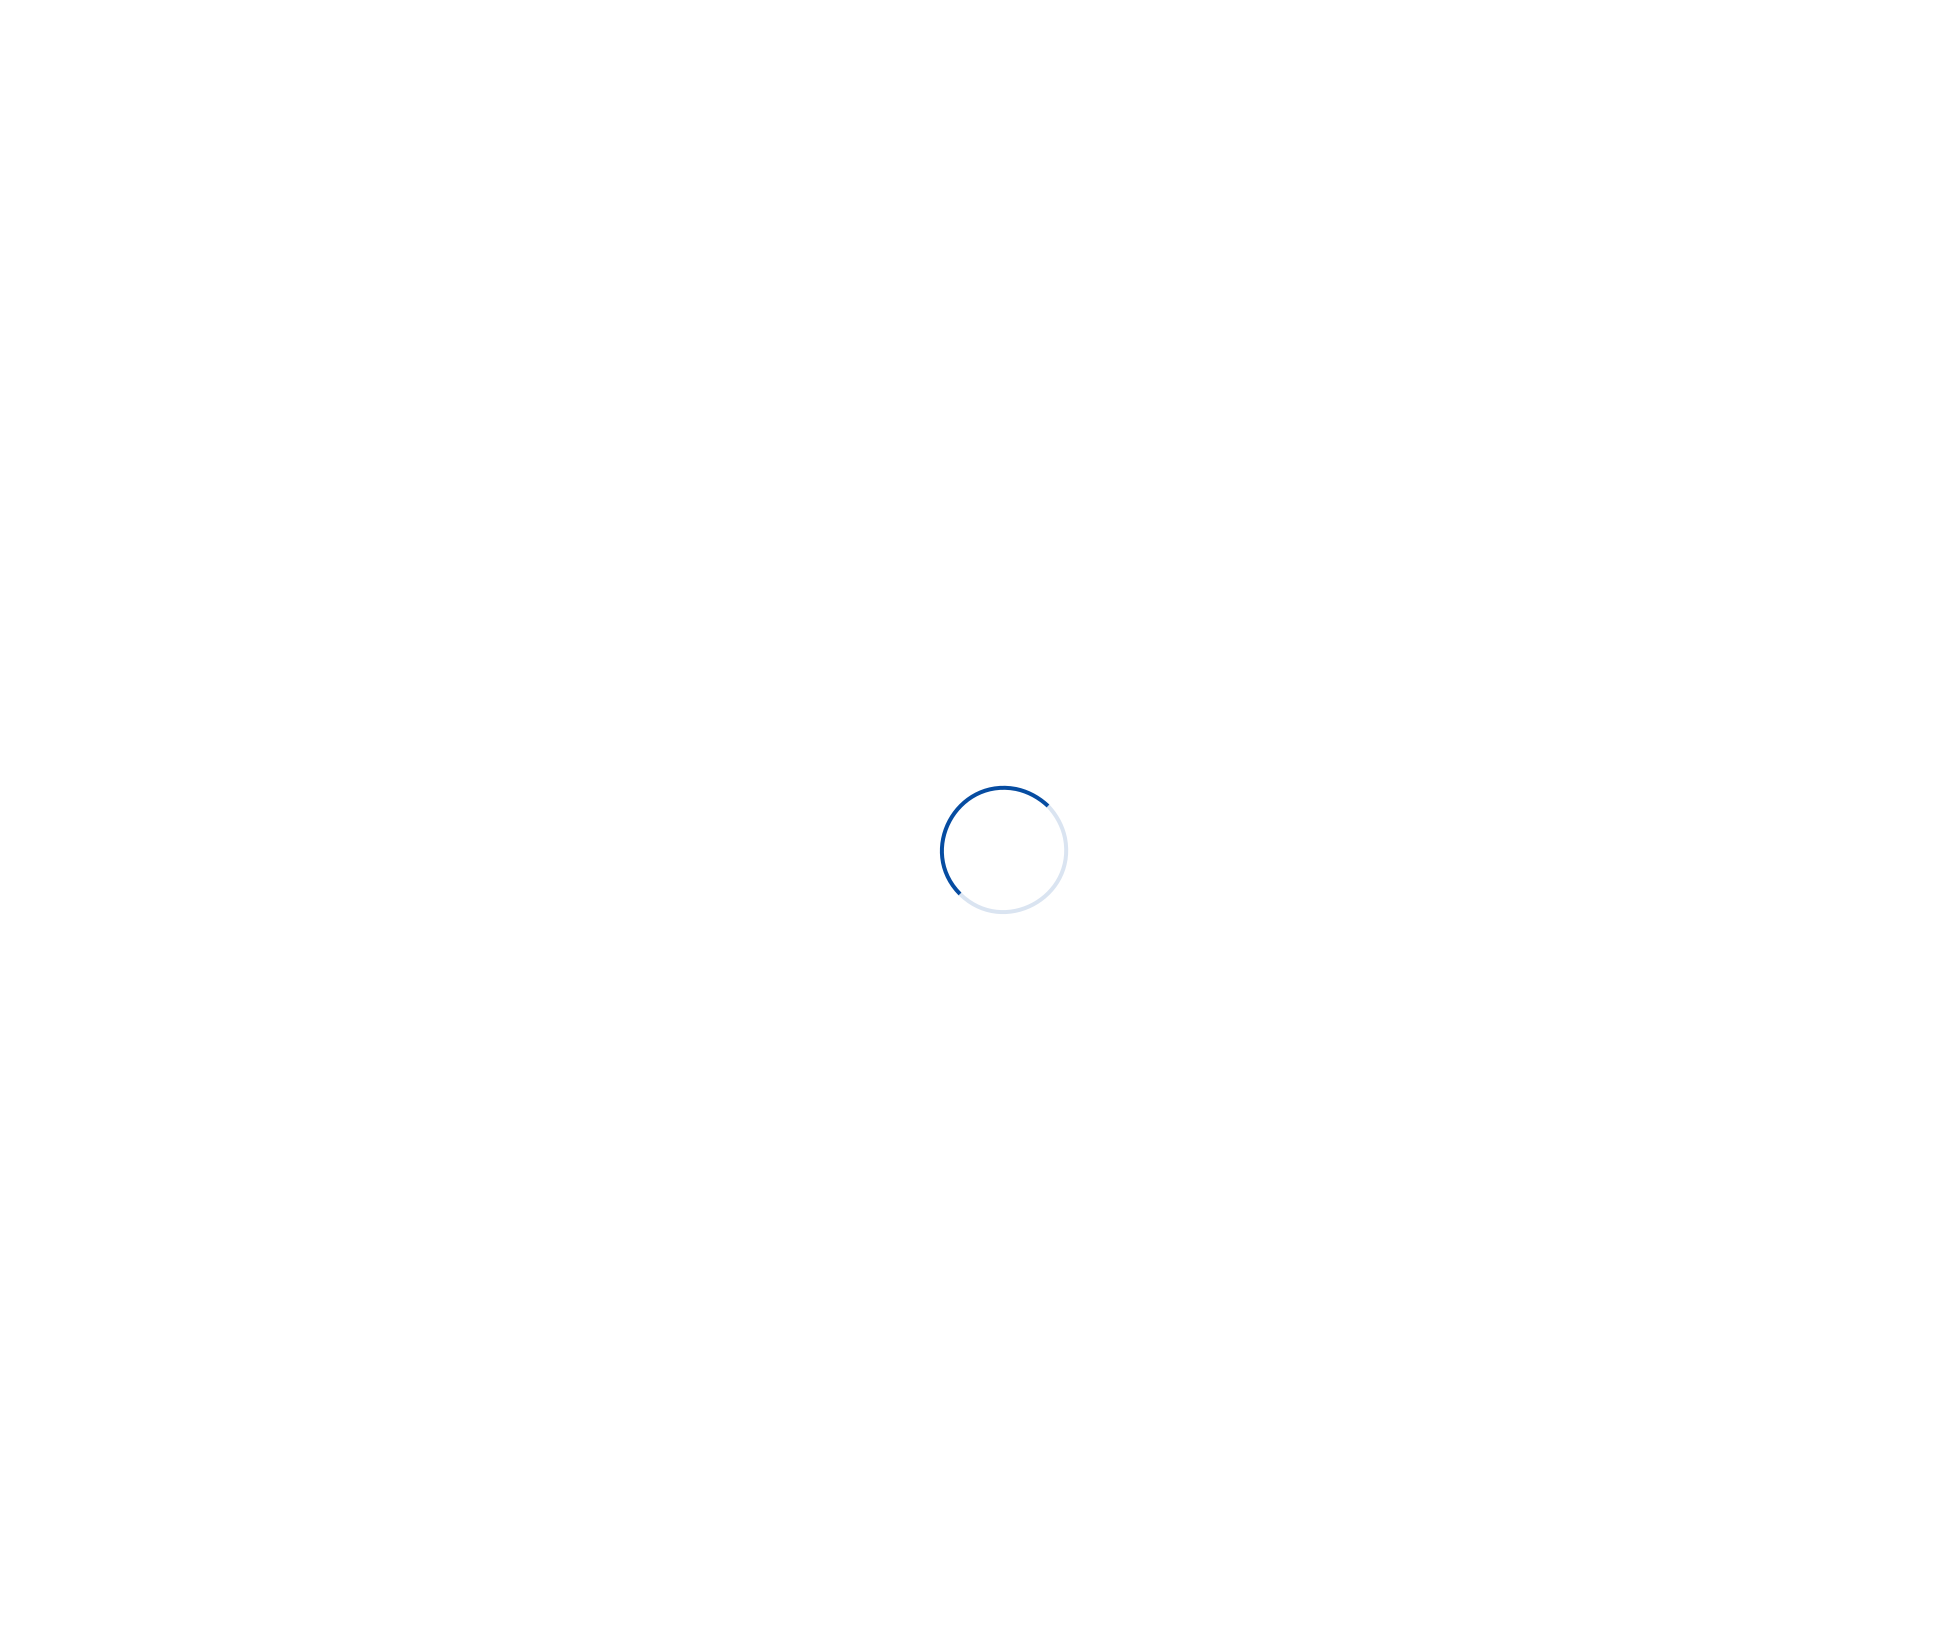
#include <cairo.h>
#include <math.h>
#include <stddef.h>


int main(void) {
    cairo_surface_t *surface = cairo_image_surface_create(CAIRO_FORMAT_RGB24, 1952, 1641);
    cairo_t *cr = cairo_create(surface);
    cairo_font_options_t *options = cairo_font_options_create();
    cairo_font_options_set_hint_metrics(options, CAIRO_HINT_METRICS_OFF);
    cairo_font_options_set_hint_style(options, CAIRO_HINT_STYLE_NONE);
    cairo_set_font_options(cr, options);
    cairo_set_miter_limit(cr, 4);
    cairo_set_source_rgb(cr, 1, 1, 1);
    cairo_paint(cr);
    cairo_new_path(cr);
    cairo_move_to(cr, 1048, 806);
    cairo_curve_to(cr, 1056.5, 815, 1062.5, 826, 1065, 838);
    cairo_curve_to(cr, 1076.5, 897.5, 1003.5, 937, 960, 894);
    cairo_set_source_rgb(cr, 0.855, 0.894, 0.945);
    cairo_set_line_width(cr, 4);
    cairo_stroke(cr);
    cairo_new_path(cr);
    cairo_move_to(cr, 960, 894);
    cairo_curve_to(cr, 917, 850.5, 956.5, 777.5, 1016, 789);
    cairo_curve_to(cr, 1028, 791.5, 1039, 797.5, 1048, 806);
    cairo_set_source_rgb(cr, 0.027, 0.298, 0.631);
    cairo_stroke(cr);
    cairo_surface_write_to_png(surface, "page.png");
    cairo_font_options_destroy(options);
    cairo_destroy(cr);
    cairo_surface_destroy(surface);
    return 0;
}
